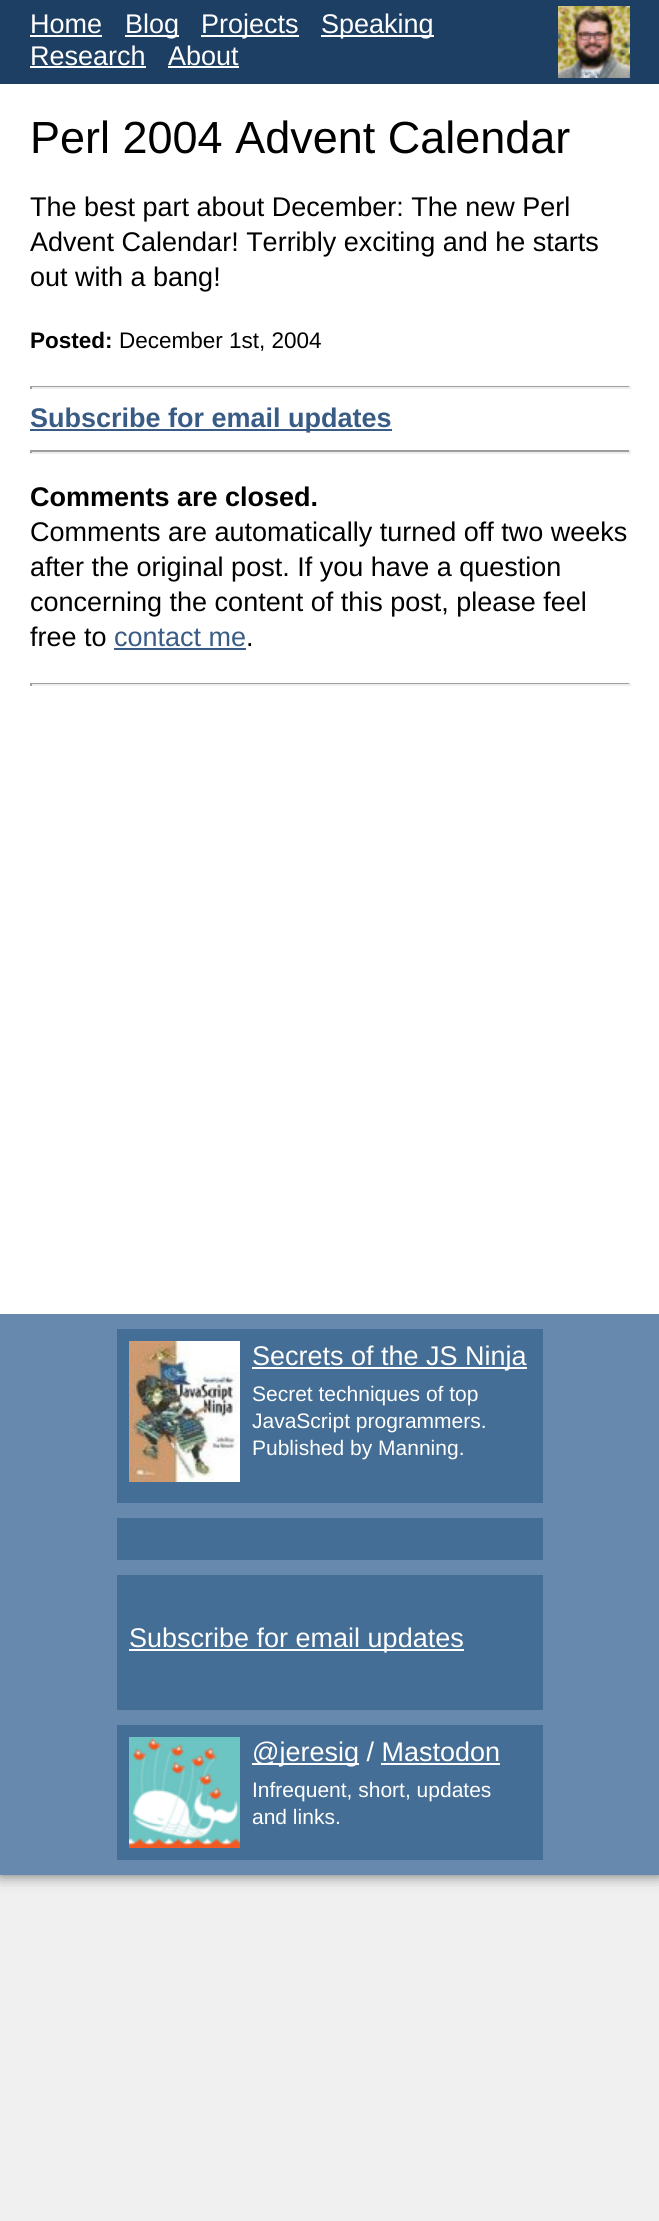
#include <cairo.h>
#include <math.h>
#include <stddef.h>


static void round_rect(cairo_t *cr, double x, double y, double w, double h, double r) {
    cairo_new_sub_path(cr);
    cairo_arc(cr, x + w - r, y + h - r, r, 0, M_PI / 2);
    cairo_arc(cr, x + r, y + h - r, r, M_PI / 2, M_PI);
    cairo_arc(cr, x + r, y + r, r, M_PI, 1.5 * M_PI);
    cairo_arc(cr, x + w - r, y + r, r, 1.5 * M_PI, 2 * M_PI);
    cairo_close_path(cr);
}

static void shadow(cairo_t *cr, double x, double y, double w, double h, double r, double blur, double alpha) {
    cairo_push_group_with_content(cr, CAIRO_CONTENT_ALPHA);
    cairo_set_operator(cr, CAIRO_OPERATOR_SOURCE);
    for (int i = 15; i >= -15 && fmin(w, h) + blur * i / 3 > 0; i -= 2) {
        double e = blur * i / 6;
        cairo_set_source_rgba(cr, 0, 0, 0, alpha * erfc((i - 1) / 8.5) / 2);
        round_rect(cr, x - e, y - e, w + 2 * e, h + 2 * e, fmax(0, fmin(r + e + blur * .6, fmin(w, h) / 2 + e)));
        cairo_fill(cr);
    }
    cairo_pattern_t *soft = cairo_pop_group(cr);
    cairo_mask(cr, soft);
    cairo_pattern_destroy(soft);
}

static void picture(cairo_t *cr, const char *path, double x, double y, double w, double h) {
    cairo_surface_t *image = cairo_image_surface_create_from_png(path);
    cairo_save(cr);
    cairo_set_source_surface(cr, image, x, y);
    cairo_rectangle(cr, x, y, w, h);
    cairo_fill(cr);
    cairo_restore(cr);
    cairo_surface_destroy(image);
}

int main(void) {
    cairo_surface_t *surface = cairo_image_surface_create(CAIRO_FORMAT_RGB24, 659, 2221);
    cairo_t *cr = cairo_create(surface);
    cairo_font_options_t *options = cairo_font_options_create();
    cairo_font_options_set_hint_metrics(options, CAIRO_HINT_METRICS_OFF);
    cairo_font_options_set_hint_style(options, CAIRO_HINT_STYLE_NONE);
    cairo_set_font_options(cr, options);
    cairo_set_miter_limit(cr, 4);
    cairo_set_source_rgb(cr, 0.941, 0.941, 0.941);
    cairo_paint(cr);
    cairo_set_source_rgb(cr, 0.4, 0.4, 0.4);
    shadow(cr, 0, 0, 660, 1875, 0, 7.5, 1);
    cairo_set_source_rgb(cr, 0.118, 0.247, 0.392);
    cairo_rectangle(cr, 0, 0, 659, 84);
    cairo_fill(cr);
    cairo_select_font_face(cr, "Liberation Sans", CAIRO_FONT_SLANT_NORMAL, CAIRO_FONT_WEIGHT_NORMAL);
    cairo_set_font_size(cr, 27);
    cairo_set_source_rgb(cr, 1, 1, 1);
    cairo_move_to(cr, 30, 33);
    cairo_show_text(cr, "Home");
    cairo_rectangle(cr, 30, 35, 72, 2);
    cairo_fill(cr);
    cairo_rectangle(cr, 125, 35, 54, 2);
    cairo_fill(cr);
    cairo_move_to(cr, 125, 33);
    cairo_show_text(cr, "Blog");
    cairo_rectangle(cr, 201, 35, 98, 2);
    cairo_fill(cr);
    cairo_move_to(cr, 201, 33);
    cairo_show_text(cr, "Projects");
    cairo_rectangle(cr, 321, 35, 113, 2);
    cairo_fill(cr);
    cairo_move_to(cr, 321, 33);
    cairo_show_text(cr, "Speaking");
    cairo_move_to(cr, 30, 65);
    cairo_show_text(cr, "Research");
    cairo_rectangle(cr, 30, 66, 116, 2);
    cairo_fill(cr);
    cairo_move_to(cr, 168, 65);
    cairo_show_text(cr, "About");
    cairo_rectangle(cr, 168, 66, 71, 2);
    cairo_fill(cr);
    picture(cr, "img1.png", 558, 6, 72, 72);
    cairo_rectangle(cr, 0, 84, 659, 1230);
    cairo_fill(cr);
    cairo_set_font_size(cr, 45);
    cairo_set_source_rgb(cr, 0, 0, 0);
    cairo_move_to(cr, 30, 153);
    cairo_show_text(cr, "Perl 2004 Advent Calendar");
    cairo_set_font_size(cr, 27);
    cairo_move_to(cr, 30, 216);
    cairo_show_text(cr, "The best part about December: The new Perl");
    cairo_move_to(cr, 30, 251);
    cairo_show_text(cr, "Advent Calendar! Terribly exciting and he starts");
    cairo_move_to(cr, 30, 286);
    cairo_show_text(cr, "out with a bang!");
    cairo_select_font_face(cr, "Liberation Sans", CAIRO_FONT_SLANT_NORMAL, CAIRO_FONT_WEIGHT_BOLD);
    cairo_set_font_size(cr, 22.5);
    cairo_move_to(cr, 30, 348);
    cairo_show_text(cr, "Posted:");
    cairo_select_font_face(cr, "Liberation Sans", CAIRO_FONT_SLANT_NORMAL, CAIRO_FONT_WEIGHT_NORMAL);
    cairo_move_to(cr, 119, 348);
    cairo_show_text(cr, "December 1st, 2004");
    cairo_set_source_rgb(cr, 0.624, 0.624, 0.624);
    cairo_rectangle(cr, 30, 386, 600, 1);
    cairo_fill(cr);
    cairo_set_source_rgb(cr, 0.933, 0.933, 0.933);
    cairo_rectangle(cr, 629, 386, 2, 3);
    cairo_fill(cr);
    cairo_rectangle(cr, 30, 387, 600, 2);
    cairo_fill(cr);
    cairo_set_source_rgb(cr, 0.624, 0.624, 0.624);
    cairo_rectangle(cr, 30, 386, 2, 3);
    cairo_fill(cr);
    cairo_set_source_rgb(cr, 0.22, 0.361, 0.522);
    cairo_rectangle(cr, 30, 429, 362, 2);
    cairo_fill(cr);
    cairo_select_font_face(cr, "Liberation Sans", CAIRO_FONT_SLANT_NORMAL, CAIRO_FONT_WEIGHT_BOLD);
    cairo_set_font_size(cr, 27);
    cairo_move_to(cr, 30, 427);
    cairo_show_text(cr, "Subscribe for email updates");
    cairo_set_source_rgb(cr, 0.624, 0.624, 0.624);
    cairo_rectangle(cr, 30, 450, 600, 2);
    cairo_fill(cr);
    cairo_set_source_rgb(cr, 0.933, 0.933, 0.933);
    cairo_rectangle(cr, 629, 450, 2, 3);
    cairo_fill(cr);
    cairo_rectangle(cr, 30, 452, 600, 2);
    cairo_fill(cr);
    cairo_set_source_rgb(cr, 0.624, 0.624, 0.624);
    cairo_rectangle(cr, 30, 450, 2, 3);
    cairo_fill(cr);
    cairo_set_source_rgb(cr, 0, 0, 0);
    cairo_move_to(cr, 30, 506);
    cairo_show_text(cr, "Comments are closed.");
    cairo_select_font_face(cr, "Liberation Sans", CAIRO_FONT_SLANT_NORMAL, CAIRO_FONT_WEIGHT_NORMAL);
    cairo_move_to(cr, 30, 541);
    cairo_show_text(cr, "Comments are automatically turned off two weeks");
    cairo_move_to(cr, 30, 576);
    cairo_show_text(cr, "after the original post. If you have a question");
    cairo_move_to(cr, 30, 611);
    cairo_show_text(cr, "concerning the content of this post, please feel");
    cairo_move_to(cr, 30, 646);
    cairo_show_text(cr, "free to");
    cairo_set_source_rgb(cr, 0.22, 0.361, 0.522);
    cairo_move_to(cr, 114, 646);
    cairo_show_text(cr, "contact me");
    cairo_rectangle(cr, 114, 648, 132, 2);
    cairo_fill(cr);
    cairo_set_source_rgb(cr, 0, 0, 0);
    cairo_move_to(cr, 246, 646);
    cairo_show_text(cr, ".");
    cairo_set_source_rgb(cr, 0.624, 0.624, 0.624);
    cairo_rectangle(cr, 30, 683, 600, 1);
    cairo_fill(cr);
    cairo_set_source_rgb(cr, 0.933, 0.933, 0.933);
    cairo_rectangle(cr, 629, 683, 2, 3);
    cairo_fill(cr);
    cairo_rectangle(cr, 30, 684, 600, 2);
    cairo_fill(cr);
    cairo_set_source_rgb(cr, 0.624, 0.624, 0.624);
    cairo_rectangle(cr, 30, 683, 2, 3);
    cairo_fill(cr);
    cairo_set_source_rgb(cr, 0.408, 0.537, 0.682);
    cairo_rectangle(cr, 0, 1314, 659, 561);
    cairo_fill(cr);
    cairo_set_source_rgb(cr, 0.267, 0.431, 0.584);
    cairo_rectangle(cr, 117, 1329, 426, 174);
    cairo_fill(cr);
    picture(cr, "img2.png", 129, 1341, 111, 141);
    cairo_set_source_rgb(cr, 1, 1, 1);
    cairo_rectangle(cr, 252, 1367, 275, 2);
    cairo_fill(cr);
    cairo_move_to(cr, 252, 1365);
    cairo_show_text(cr, "Secrets of the JS Ninja");
    cairo_set_font_size(cr, 21);
    cairo_move_to(cr, 252, 1401);
    cairo_show_text(cr, "Secret techniques of top");
    cairo_move_to(cr, 252, 1428);
    cairo_show_text(cr, "JavaScript programmers.");
    cairo_move_to(cr, 252, 1455);
    cairo_show_text(cr, "Published by Manning.");
    cairo_set_source_rgb(cr, 0.267, 0.431, 0.584);
    cairo_rectangle(cr, 117, 1518, 426, 42);
    cairo_fill(cr);
    cairo_rectangle(cr, 117, 1575, 426, 135);
    cairo_fill(cr);
    cairo_set_source_rgb(cr, 1, 1, 1);
    cairo_rectangle(cr, 129, 1649, 335, 2);
    cairo_fill(cr);
    cairo_set_font_size(cr, 27);
    cairo_move_to(cr, 129, 1647);
    cairo_show_text(cr, "Subscribe for email updates");
    cairo_set_source_rgb(cr, 0.267, 0.431, 0.584);
    cairo_rectangle(cr, 117, 1725, 426, 135);
    cairo_fill(cr);
    picture(cr, "img3.png", 129, 1737, 111, 111);
    cairo_set_source_rgb(cr, 1, 1, 1);
    cairo_rectangle(cr, 252, 1763, 107, 2);
    cairo_fill(cr);
    cairo_move_to(cr, 252, 1761);
    cairo_show_text(cr, "@jeresig / Mastodon");
    cairo_rectangle(cr, 381, 1763, 119, 2);
    cairo_fill(cr);
    cairo_set_font_size(cr, 21);
    cairo_move_to(cr, 252, 1797);
    cairo_show_text(cr, "Infrequent, short, updates");
    cairo_move_to(cr, 252, 1824);
    cairo_show_text(cr, "and links.");
    cairo_surface_write_to_png(surface, "page.png");
    cairo_font_options_destroy(options);
    cairo_destroy(cr);
    cairo_surface_destroy(surface);
    return 0;
}
